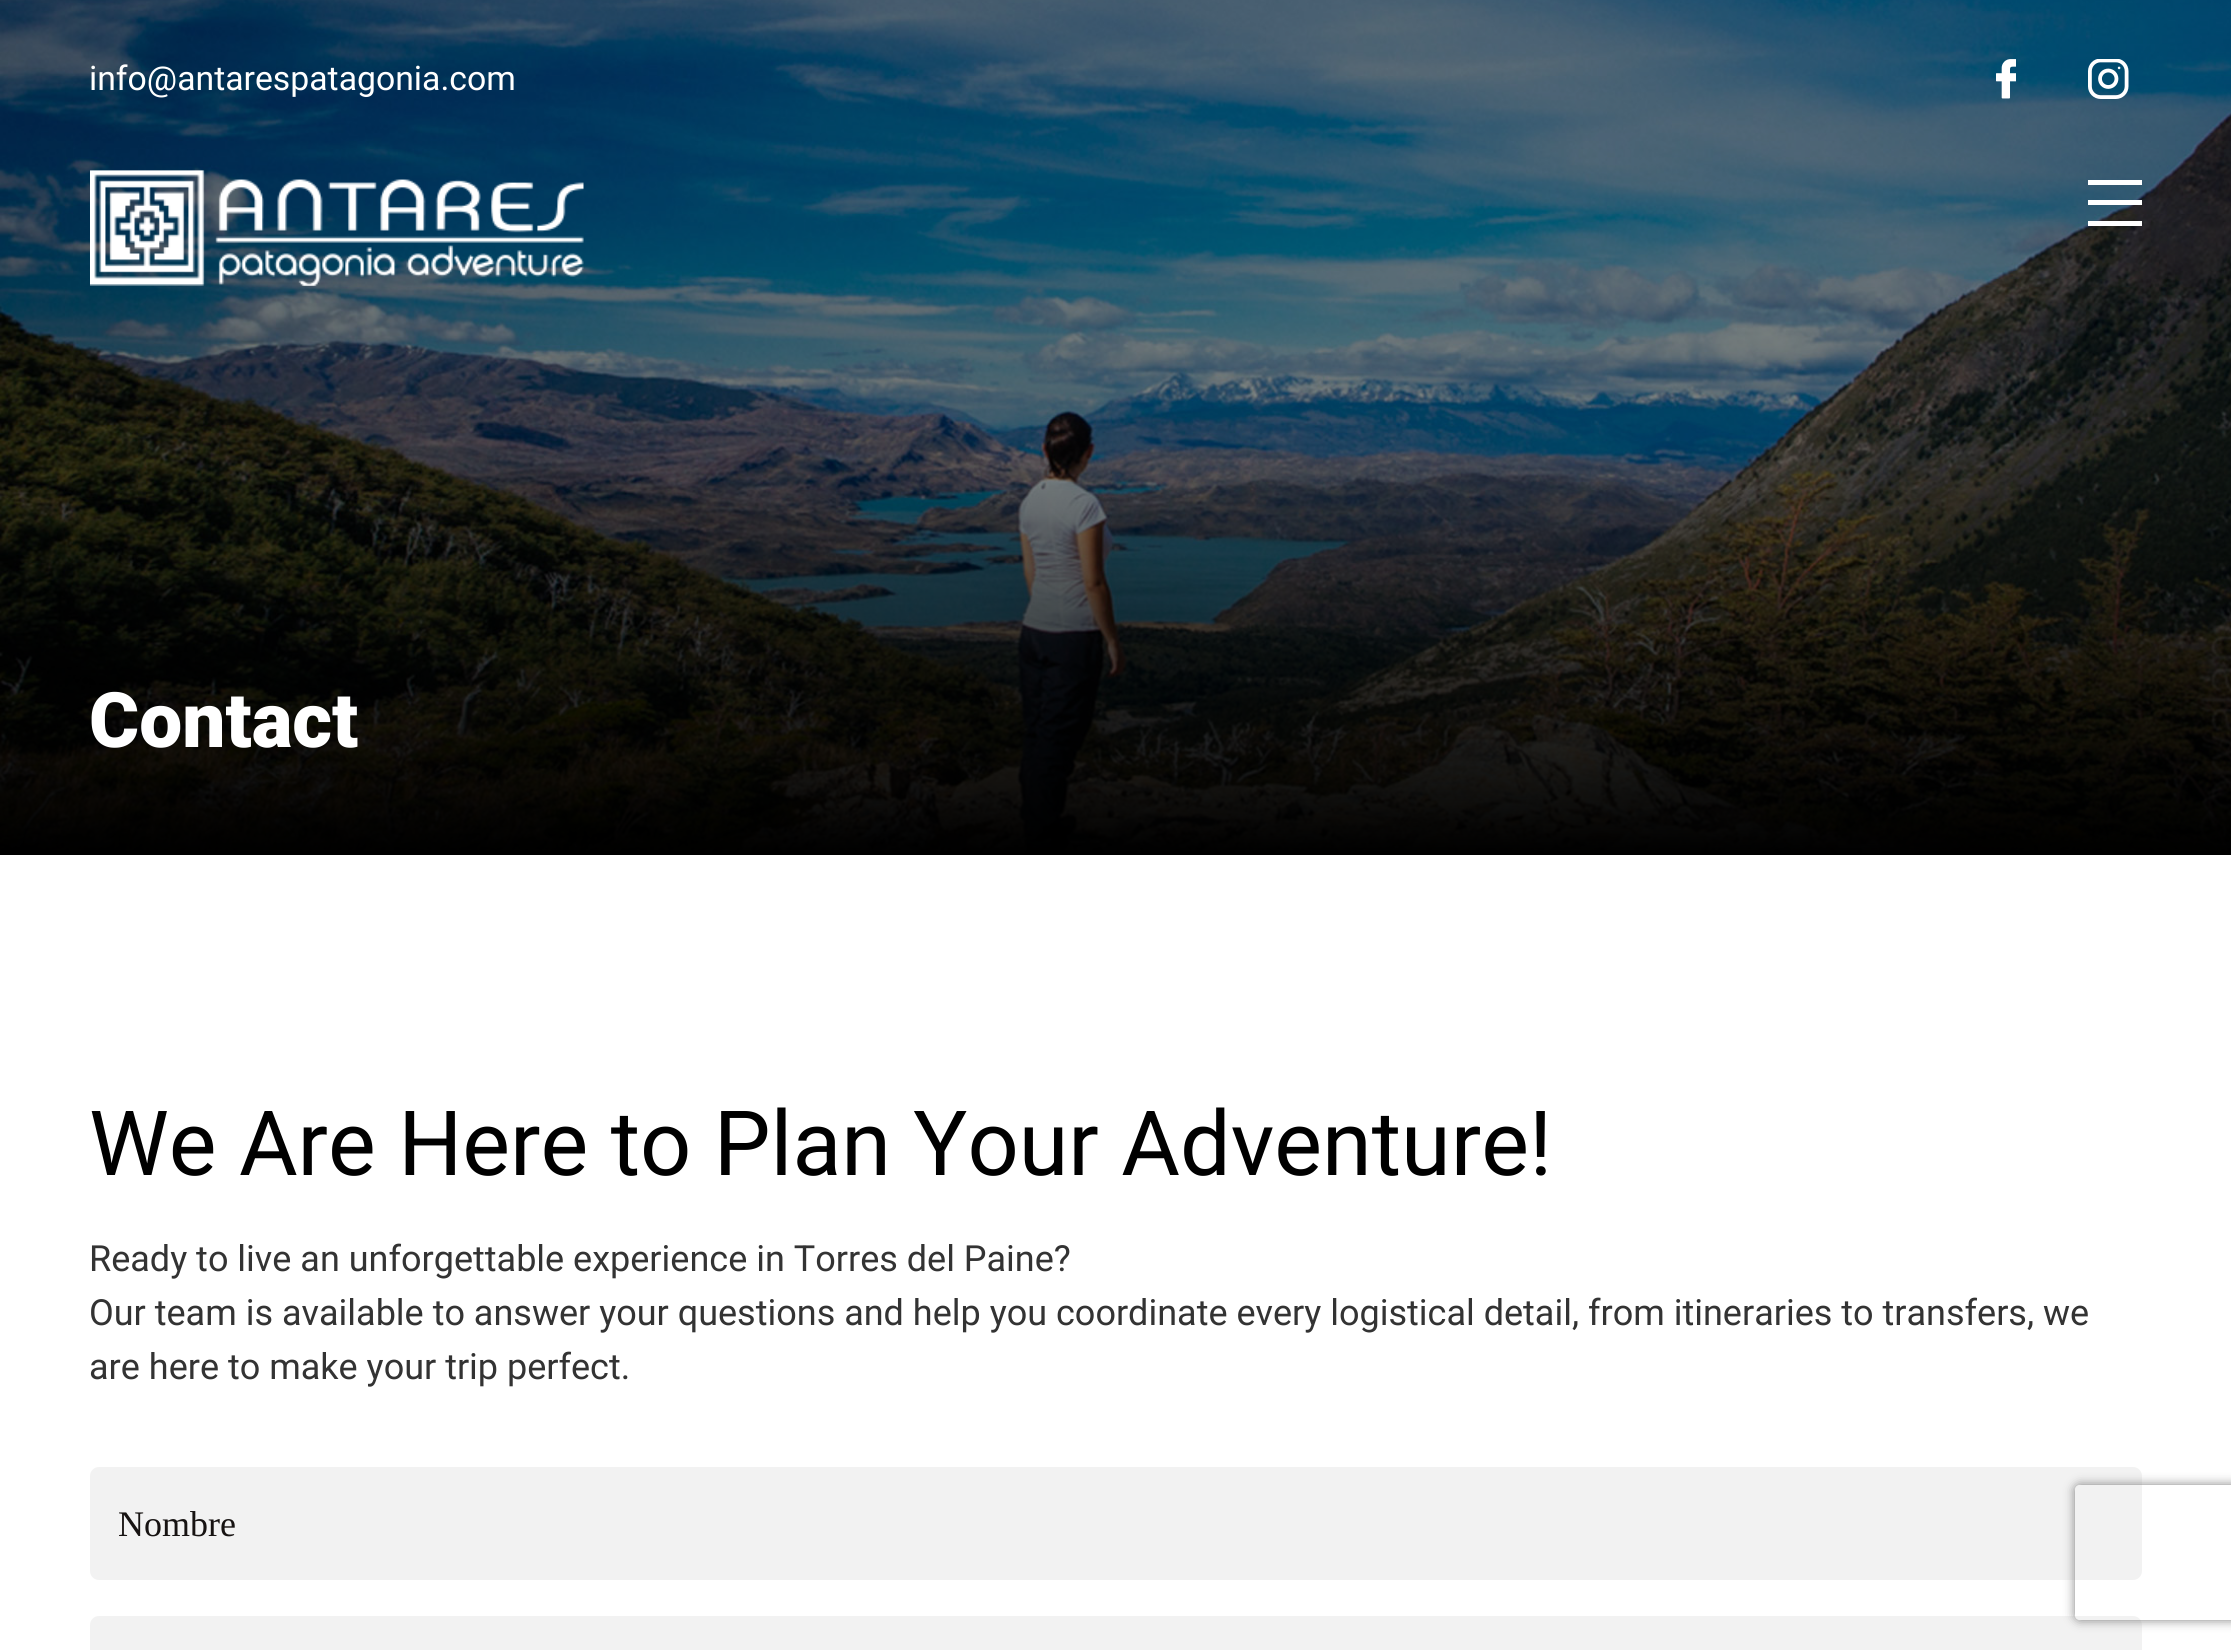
#include <cairo.h>
#include <math.h>
#include <stddef.h>


static void round_rect(cairo_t *cr, double x, double y, double w, double h, double r) {
    cairo_new_sub_path(cr);
    cairo_arc(cr, x + w - r, y + h - r, r, 0, M_PI / 2);
    cairo_arc(cr, x + r, y + h - r, r, M_PI / 2, M_PI);
    cairo_arc(cr, x + r, y + r, r, M_PI, 1.5 * M_PI);
    cairo_arc(cr, x + w - r, y + r, r, 1.5 * M_PI, 2 * M_PI);
    cairo_close_path(cr);
}

static void shadow(cairo_t *cr, double x, double y, double w, double h, double r, double blur, double alpha) {
    cairo_push_group_with_content(cr, CAIRO_CONTENT_ALPHA);
    cairo_set_operator(cr, CAIRO_OPERATOR_SOURCE);
    for (int i = 15; i >= -15 && fmin(w, h) + blur * i / 3 > 0; i -= 2) {
        double e = blur * i / 6;
        cairo_set_source_rgba(cr, 0, 0, 0, alpha * erfc((i - 1) / 8.5) / 2);
        round_rect(cr, x - e, y - e, w + 2 * e, h + 2 * e, fmax(0, fmin(r + e + blur * .6, fmin(w, h) / 2 + e)));
        cairo_fill(cr);
    }
    cairo_pattern_t *soft = cairo_pop_group(cr);
    cairo_mask(cr, soft);
    cairo_pattern_destroy(soft);
}

static void picture(cairo_t *cr, const char *path, double x, double y, double w, double h) {
    cairo_surface_t *image = cairo_image_surface_create_from_png(path);
    cairo_save(cr);
    cairo_set_source_surface(cr, image, x, y);
    cairo_rectangle(cr, x, y, w, h);
    cairo_fill(cr);
    cairo_restore(cr);
    cairo_surface_destroy(image);
}

int main(void) {
    cairo_surface_t *surface = cairo_image_surface_create(CAIRO_FORMAT_RGB24, 2231, 1650);
    cairo_t *cr = cairo_create(surface);
    cairo_font_options_t *options = cairo_font_options_create();
    cairo_font_options_set_hint_metrics(options, CAIRO_HINT_METRICS_OFF);
    cairo_font_options_set_hint_style(options, CAIRO_HINT_STYLE_NONE);
    cairo_set_font_options(cr, options);
    cairo_set_miter_limit(cr, 4);
    cairo_set_source_rgb(cr, 1, 1, 1);
    cairo_paint(cr);
    picture(cr, "img1.png", 0, 0, 2231, 855);
    cairo_select_font_face(cr, "Roboto", CAIRO_FONT_SLANT_NORMAL, CAIRO_FONT_WEIGHT_NORMAL);
    cairo_set_font_size(cr, 33.75);
    cairo_set_source_rgb(cr, 1, 1, 1);
    cairo_move_to(cr, 89, 90);
    cairo_show_text(cr, "info@antarespatagonia.com");
    picture(cr, "img2.png", 1996, 59, 20, 40);
    picture(cr, "img3.png", 2088, 59, 41, 40);
    picture(cr, "img4.png", 90, 170, 494, 116);
    cairo_rectangle(cr, 2088, 180, 54, 5);
    cairo_fill(cr);
    cairo_rectangle(cr, 2088, 200, 54, 5);
    cairo_fill(cr);
    cairo_rectangle(cr, 2088, 221, 54, 5);
    cairo_fill(cr);
    cairo_select_font_face(cr, "Roboto Black", CAIRO_FONT_SLANT_NORMAL, CAIRO_FONT_WEIGHT_NORMAL);
    cairo_set_font_size(cr, 76.5);
    cairo_move_to(cr, 89, 747);
    cairo_show_text(cr, "Contact");
    cairo_select_font_face(cr, "Roboto", CAIRO_FONT_SLANT_NORMAL, CAIRO_FONT_WEIGHT_NORMAL);
    cairo_set_font_size(cr, 90);
    cairo_set_source_rgb(cr, 0, 0, 0);
    cairo_move_to(cr, 89, 1175);
    cairo_show_text(cr, "We Are Here to Plan Your Adventure!");
    cairo_set_font_size(cr, 36);
    cairo_set_source_rgb(cr, 0.2, 0.2, 0.2);
    cairo_move_to(cr, 89, 1271);
    cairo_show_text(cr, "Ready to live an unforgettable experience in Torres del Paine?");
    cairo_move_to(cr, 89, 1325);
    cairo_show_text(cr, "Our team is available to answer your questions and help you coordinate every logistical detail, from itineraries to transfers, we");
    cairo_move_to(cr, 89, 1379);
    cairo_show_text(cr, "are here to make your trip perfect.");
    cairo_set_source_rgb(cr, 0.949, 0.949, 0.949);
    round_rect(cr, 90, 1467, 2052, 113, 9);
    cairo_fill(cr);
    cairo_select_font_face(cr, "Liberation Serif", CAIRO_FONT_SLANT_NORMAL, CAIRO_FONT_WEIGHT_NORMAL);
    cairo_set_source_rgb(cr, 0.09, 0.078, 0.071);
    cairo_move_to(cr, 118, 1536);
    cairo_show_text(cr, "Nombre");
    cairo_set_source_rgb(cr, 0.949, 0.949, 0.949);
    round_rect(cr, 90, 1616, 2052, 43, 9);
    cairo_fill(cr);
    cairo_save(cr);
    cairo_set_fill_rule(cr, CAIRO_FILL_RULE_EVEN_ODD);
    cairo_new_path(cr);
    cairo_move_to(cr, 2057, 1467);
    cairo_line_to(cr, 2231, 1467);
    cairo_line_to(cr, 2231, 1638);
    cairo_line_to(cr, 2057, 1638);
    cairo_close_path(cr);
    cairo_move_to(cr, 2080, 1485);
    cairo_line_to(cr, 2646, 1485);
    cairo_curve_to(cr, 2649, 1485, 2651, 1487, 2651, 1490);
    cairo_line_to(cr, 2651, 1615);
    cairo_curve_to(cr, 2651, 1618, 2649, 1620, 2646, 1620);
    cairo_line_to(cr, 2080, 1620);
    cairo_curve_to(cr, 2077, 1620, 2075, 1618, 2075, 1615);
    cairo_line_to(cr, 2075, 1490);
    cairo_curve_to(cr, 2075, 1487, 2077, 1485, 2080, 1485);
    cairo_close_path(cr);
    cairo_clip(cr);
    cairo_set_source_rgb(cr, 0.502, 0.502, 0.502);
    shadow(cr, 2075, 1485, 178, 135, 5, 5.5, 1);
    cairo_restore(cr);
    cairo_surface_write_to_png(surface, "page.png");
    cairo_font_options_destroy(options);
    cairo_destroy(cr);
    cairo_surface_destroy(surface);
    return 0;
}
